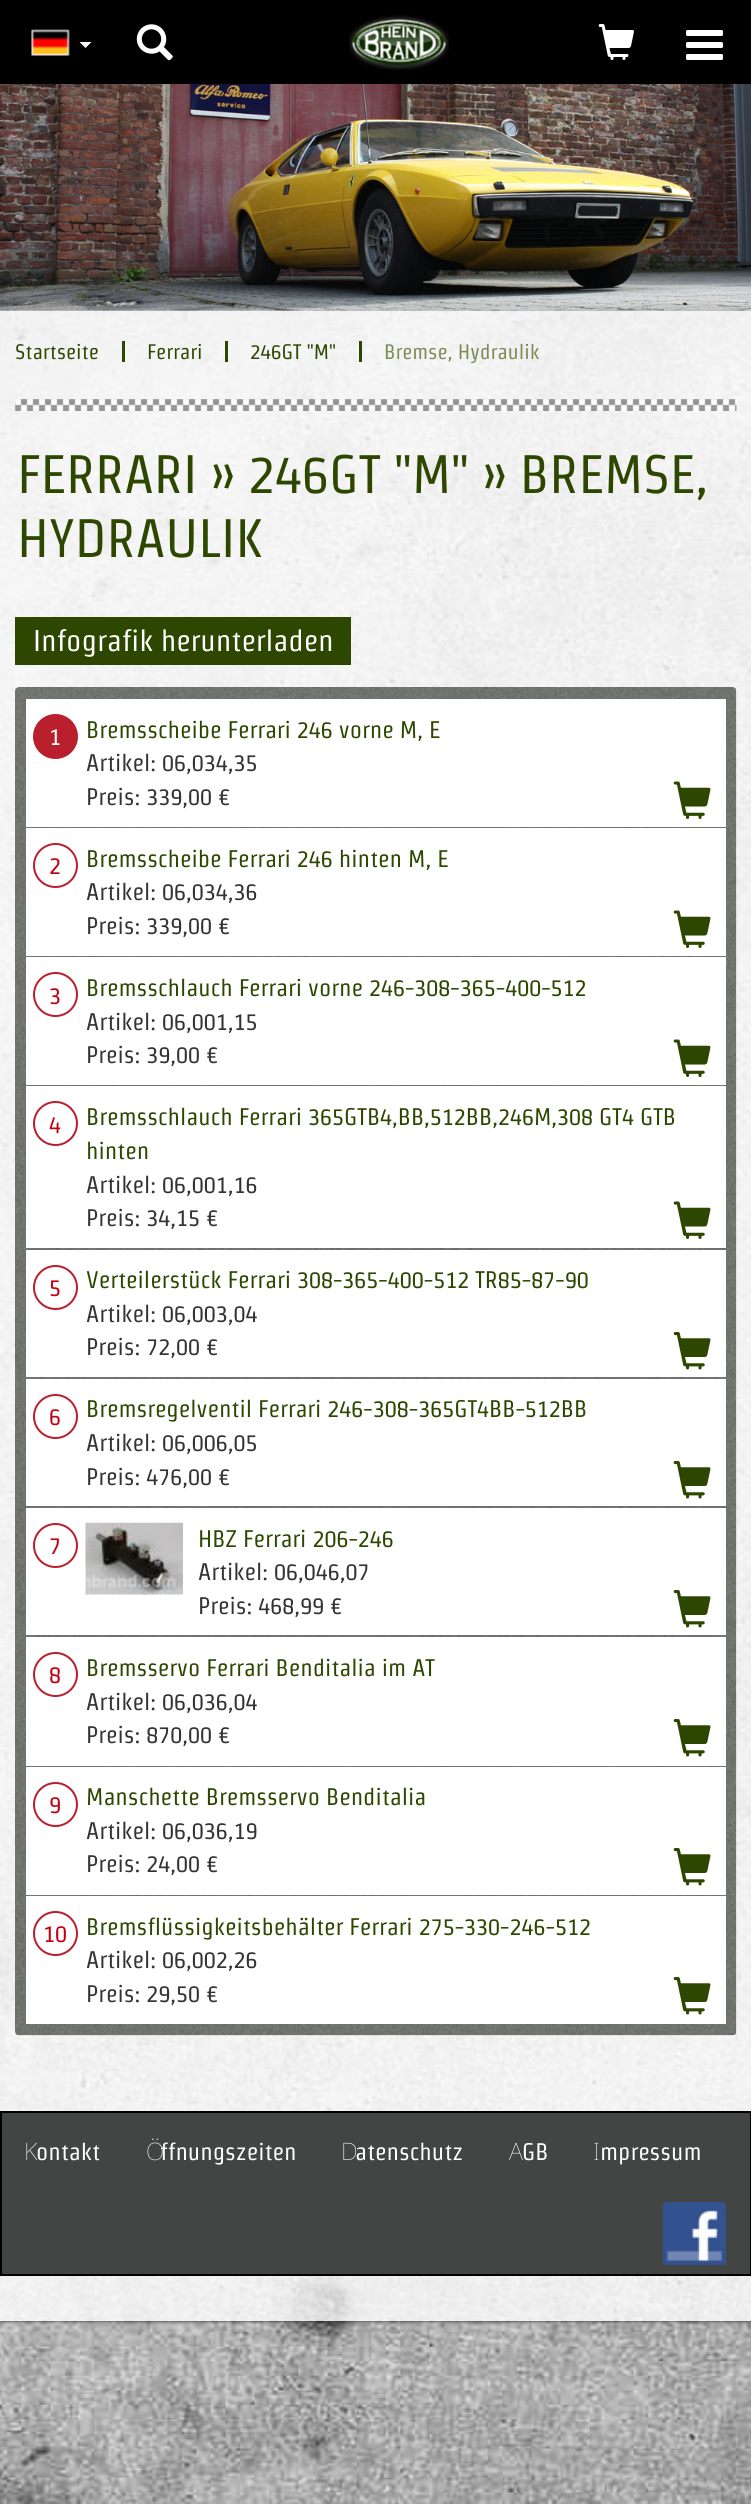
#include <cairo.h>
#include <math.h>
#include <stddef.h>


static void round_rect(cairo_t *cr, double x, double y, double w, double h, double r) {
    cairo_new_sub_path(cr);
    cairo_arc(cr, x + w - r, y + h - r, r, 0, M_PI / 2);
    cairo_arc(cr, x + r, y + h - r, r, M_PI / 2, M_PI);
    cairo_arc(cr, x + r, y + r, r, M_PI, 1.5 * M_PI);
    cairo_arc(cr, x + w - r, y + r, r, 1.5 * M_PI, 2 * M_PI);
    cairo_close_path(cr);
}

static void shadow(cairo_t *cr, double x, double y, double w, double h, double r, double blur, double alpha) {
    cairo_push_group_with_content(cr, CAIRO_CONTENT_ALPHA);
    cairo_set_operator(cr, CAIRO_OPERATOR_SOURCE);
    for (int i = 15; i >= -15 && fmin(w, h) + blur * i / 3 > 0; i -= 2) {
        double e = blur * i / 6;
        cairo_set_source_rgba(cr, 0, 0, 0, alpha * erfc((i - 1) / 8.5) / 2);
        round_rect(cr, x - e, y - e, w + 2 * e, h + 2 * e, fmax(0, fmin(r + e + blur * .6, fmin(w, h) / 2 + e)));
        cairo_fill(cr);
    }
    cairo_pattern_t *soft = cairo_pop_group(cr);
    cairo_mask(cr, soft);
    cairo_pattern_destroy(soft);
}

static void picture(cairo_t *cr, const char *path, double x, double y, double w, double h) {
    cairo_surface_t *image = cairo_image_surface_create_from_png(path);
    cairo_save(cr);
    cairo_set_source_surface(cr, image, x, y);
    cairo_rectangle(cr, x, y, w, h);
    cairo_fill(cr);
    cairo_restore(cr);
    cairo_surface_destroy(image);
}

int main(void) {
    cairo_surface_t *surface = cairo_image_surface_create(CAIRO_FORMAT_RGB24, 751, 2504);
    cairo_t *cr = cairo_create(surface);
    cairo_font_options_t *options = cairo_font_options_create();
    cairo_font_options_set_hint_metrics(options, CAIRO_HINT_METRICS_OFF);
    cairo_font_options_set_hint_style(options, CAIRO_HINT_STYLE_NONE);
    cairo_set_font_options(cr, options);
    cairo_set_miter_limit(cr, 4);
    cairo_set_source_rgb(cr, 1, 1, 1);
    cairo_paint(cr);
    picture(cr, "img1.png", 0, 310, 751, 2194);
    cairo_save(cr);
    cairo_set_fill_rule(cr, CAIRO_FILL_RULE_EVEN_ODD);
    cairo_new_path(cr);
    cairo_move_to(cr, 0, 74);
    cairo_line_to(cr, 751, 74);
    cairo_line_to(cr, 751, 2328);
    cairo_line_to(cr, 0, 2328);
    cairo_close_path(cr);
    cairo_move_to(cr, 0, 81);
    cairo_line_to(cr, 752, 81);
    cairo_line_to(cr, 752, 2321);
    cairo_line_to(cr, 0, 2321);
    cairo_close_path(cr);
    cairo_clip(cr);
    cairo_set_source_rgb(cr, 0, 0, 0);
    shadow(cr, 0, 81, 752, 2240, 0, 2, 0.8);
    cairo_restore(cr);
    cairo_set_source_rgb(cr, 0, 0, 0);
    cairo_rectangle(cr, 0, 0, 751, 84);
    cairo_fill(cr);
    picture(cr, "img2.png", 31, 29, 39, 27);
    cairo_set_source_rgb(cr, 1, 1, 1);
    cairo_new_path(cr);
    cairo_move_to(cr, 79.5, 42);
    cairo_line_to(cr, 91.5, 42);
    cairo_line_to(cr, 85.5, 48);
    cairo_close_path(cr);
    cairo_fill(cr);
    picture(cr, "img3.png", 136, 24, 37, 37);
    picture(cr, "img4.png", 349, 15, 100, 55);
    picture(cr, "img5.png", 598, 24, 36, 36);
    round_rect(cr, 686, 30, 37, 6, 1.5);
    cairo_fill(cr);
    round_rect(cr, 686, 42, 37, 6, 1.5);
    cairo_fill(cr);
    round_rect(cr, 686, 54, 37, 6, 1.5);
    cairo_fill(cr);
    picture(cr, "img6.png", 0, 84, 751, 227);
    cairo_set_source_rgba(cr, 1, 1, 1, 0.8);
    cairo_rectangle(cr, 0, 311, 751, 2010);
    cairo_fill(cr);
    cairo_set_source_rgb(cr, 0.176, 0.278, 0);
    cairo_rectangle(cr, 122, 341, 3, 21);
    cairo_fill(cr);
    cairo_select_font_face(cr, "Strait", CAIRO_FONT_SLANT_NORMAL, CAIRO_FONT_WEIGHT_NORMAL);
    cairo_set_font_size(cr, 21);
    cairo_move_to(cr, 15, 359);
    cairo_show_text(cr, "Startseite");
    cairo_rectangle(cr, 225, 341, 3, 21);
    cairo_fill(cr);
    cairo_move_to(cr, 147, 359);
    cairo_show_text(cr, "Ferrari");
    cairo_rectangle(cr, 359, 341, 3, 21);
    cairo_fill(cr);
    cairo_move_to(cr, 250, 359);
    cairo_show_text(cr, "246GT \"M\"");
    cairo_set_source_rgb(cr, 0.49, 0.545, 0.325);
    cairo_move_to(cr, 384, 359);
    cairo_show_text(cr, "Bremse, Hydraulik");
    picture(cr, "img7.png", 15, 399, 722, 12);
    cairo_set_font_size(cr, 54);
    cairo_set_source_rgb(cr, 0.176, 0.278, 0);
    cairo_move_to(cr, 17, 493);
    cairo_show_text(cr, "FERRARI » 246GT \"M\" » BREMSE,");
    cairo_move_to(cr, 17, 557);
    cairo_show_text(cr, "HYDRAULIK");
    cairo_rectangle(cr, 15, 617, 336, 48);
    cairo_fill(cr);
    cairo_set_font_size(cr, 30);
    cairo_set_source_rgb(cr, 1, 1, 1);
    cairo_move_to(cr, 33, 651);
    cairo_show_text(cr, "Infografik herunterladen");
    picture(cr, "img8.png", 15, 687, 722, 1349);
    cairo_rectangle(cr, 26, 699, 700, 128);
    cairo_fill(cr);
    cairo_set_source_rgb(cr, 0.725, 0.122, 0.176);
    cairo_arc(cr, 55.5, 736.5, 21.5, 0, 2 * M_PI);
    cairo_fill_preserve(cr);
    cairo_stroke(cr);
    cairo_set_font_size(cr, 24);
    cairo_set_source_rgb(cr, 1, 1, 1);
    cairo_move_to(cr, 49, 745);
    cairo_show_text(cr, "1");
    cairo_set_source_rgb(cr, 0.176, 0.278, 0);
    cairo_move_to(cr, 86, 738);
    cairo_show_text(cr, "Bremsscheibe Ferrari 246 vorne M, E");
    cairo_set_source_rgb(cr, 0.2, 0.2, 0.2);
    cairo_move_to(cr, 86, 771);
    cairo_show_text(cr, "Artikel: 06,034,35");
    cairo_move_to(cr, 86, 805);
    cairo_show_text(cr, "Preis: 339,00 €");
    picture(cr, "img9.png", 673, 781, 38, 38);
    cairo_set_source_rgb(cr, 1, 1, 1);
    cairo_rectangle(cr, 26, 828, 700, 128);
    cairo_fill(cr);
    cairo_arc(cr, 55.5, 865.5, 21.5, 0, 2 * M_PI);
    cairo_set_source_rgb(cr, 0.725, 0.122, 0.176);
    cairo_stroke(cr);
    cairo_set_source_rgb(cr, 0.761, 0, 0.059);
    cairo_move_to(cr, 49, 874);
    cairo_show_text(cr, "2");
    cairo_set_source_rgb(cr, 0.176, 0.278, 0);
    cairo_move_to(cr, 86, 867);
    cairo_show_text(cr, "Bremsscheibe Ferrari 246 hinten M, E");
    cairo_set_source_rgb(cr, 0.2, 0.2, 0.2);
    cairo_move_to(cr, 86, 900);
    cairo_show_text(cr, "Artikel: 06,034,36");
    cairo_move_to(cr, 86, 934);
    cairo_show_text(cr, "Preis: 339,00 €");
    picture(cr, "img9.png", 673, 910, 38, 38);
    cairo_set_source_rgb(cr, 1, 1, 1);
    cairo_rectangle(cr, 26, 957, 700, 128);
    cairo_fill(cr);
    cairo_arc(cr, 55.5, 994.5, 21.5, 0, 2 * M_PI);
    cairo_set_source_rgb(cr, 0.725, 0.122, 0.176);
    cairo_stroke(cr);
    cairo_set_source_rgb(cr, 0.761, 0, 0.059);
    cairo_move_to(cr, 49, 1004);
    cairo_show_text(cr, "3");
    cairo_set_source_rgb(cr, 0.176, 0.278, 0);
    cairo_move_to(cr, 86, 996);
    cairo_show_text(cr, "Bremsschlauch Ferrari vorne 246-308-365-400-512");
    cairo_set_source_rgb(cr, 0.2, 0.2, 0.2);
    cairo_move_to(cr, 86, 1030);
    cairo_show_text(cr, "Artikel: 06,001,15");
    cairo_move_to(cr, 86, 1063);
    cairo_show_text(cr, "Preis: 39,00 €");
    picture(cr, "img9.png", 673, 1039, 38, 38);
    cairo_set_source_rgb(cr, 1, 1, 1);
    cairo_rectangle(cr, 26, 1086, 700, 162);
    cairo_fill(cr);
    cairo_arc(cr, 55.5, 1123.5, 21.5, 0, 2 * M_PI);
    cairo_set_source_rgb(cr, 0.725, 0.122, 0.176);
    cairo_stroke(cr);
    cairo_set_source_rgb(cr, 0.761, 0, 0.059);
    cairo_move_to(cr, 49, 1133);
    cairo_show_text(cr, "4");
    cairo_set_source_rgb(cr, 0.176, 0.278, 0);
    cairo_move_to(cr, 86, 1125);
    cairo_show_text(cr, "Bremsschlauch Ferrari 365GTB4,BB,512BB,246M,308 GT4 GTB");
    cairo_move_to(cr, 86, 1159);
    cairo_show_text(cr, "hinten");
    cairo_set_source_rgb(cr, 0.2, 0.2, 0.2);
    cairo_move_to(cr, 86, 1193);
    cairo_show_text(cr, "Artikel: 06,001,16");
    cairo_move_to(cr, 86, 1226);
    cairo_show_text(cr, "Preis: 34,15 €");
    picture(cr, "img9.png", 673, 1201, 38, 38);
    cairo_set_source_rgb(cr, 1, 1, 1);
    cairo_rectangle(cr, 26, 1250, 700, 127);
    cairo_fill(cr);
    cairo_arc(cr, 55.5, 1287.5, 21.5, 0, 2 * M_PI);
    cairo_set_source_rgb(cr, 0.725, 0.122, 0.176);
    cairo_stroke(cr);
    cairo_set_source_rgb(cr, 0.761, 0, 0.059);
    cairo_move_to(cr, 49, 1296);
    cairo_show_text(cr, "5");
    cairo_set_source_rgb(cr, 0.176, 0.278, 0);
    cairo_move_to(cr, 86, 1288);
    cairo_show_text(cr, "Verteilerstück Ferrari 308-365-400-512 TR85-87-90");
    cairo_set_source_rgb(cr, 0.2, 0.2, 0.2);
    cairo_move_to(cr, 86, 1322);
    cairo_show_text(cr, "Artikel: 06,003,04");
    cairo_move_to(cr, 86, 1355);
    cairo_show_text(cr, "Preis: 72,00 €");
    picture(cr, "img10.png", 673, 1332, 38, 38);
    cairo_set_source_rgb(cr, 1, 1, 1);
    cairo_rectangle(cr, 26, 1379, 700, 127);
    cairo_fill(cr);
    cairo_arc(cr, 55.5, 1416.5, 21.5, 0, 2 * M_PI);
    cairo_set_source_rgb(cr, 0.725, 0.122, 0.176);
    cairo_stroke(cr);
    cairo_set_source_rgb(cr, 0.761, 0, 0.059);
    cairo_move_to(cr, 49, 1425);
    cairo_show_text(cr, "6");
    cairo_set_source_rgb(cr, 0.176, 0.278, 0);
    cairo_move_to(cr, 86, 1417);
    cairo_show_text(cr, "Bremsregelventil Ferrari 246-308-365GT4BB-512BB");
    cairo_set_source_rgb(cr, 0.2, 0.2, 0.2);
    cairo_move_to(cr, 86, 1451);
    cairo_show_text(cr, "Artikel: 06,006,05");
    cairo_move_to(cr, 86, 1485);
    cairo_show_text(cr, "Preis: 476,00 €");
    picture(cr, "img10.png", 673, 1461, 38, 38);
    cairo_set_source_rgb(cr, 1, 1, 1);
    cairo_rectangle(cr, 26, 1508, 700, 127);
    cairo_fill(cr);
    cairo_arc(cr, 55.5, 1545.5, 21.5, 0, 2 * M_PI);
    cairo_set_source_rgb(cr, 0.725, 0.122, 0.176);
    cairo_stroke(cr);
    cairo_set_source_rgb(cr, 0.761, 0, 0.059);
    cairo_move_to(cr, 49, 1554);
    cairo_show_text(cr, "7");
    picture(cr, "img11.png", 85, 1522, 98, 73);
    cairo_set_source_rgb(cr, 0.176, 0.278, 0);
    cairo_move_to(cr, 198, 1547);
    cairo_show_text(cr, "HBZ Ferrari 206-246");
    cairo_set_source_rgb(cr, 0.2, 0.2, 0.2);
    cairo_move_to(cr, 198, 1580);
    cairo_show_text(cr, "Artikel: 06,046,07");
    cairo_move_to(cr, 198, 1614);
    cairo_show_text(cr, "Preis: 468,99 €");
    picture(cr, "img10.png", 673, 1590, 38, 38);
    cairo_set_source_rgb(cr, 1, 1, 1);
    cairo_rectangle(cr, 26, 1637, 700, 129);
    cairo_fill(cr);
    cairo_arc(cr, 55.5, 1674.5, 21.5, 0, 2 * M_PI);
    cairo_set_source_rgb(cr, 0.725, 0.122, 0.176);
    cairo_stroke(cr);
    cairo_set_source_rgb(cr, 0.761, 0, 0.059);
    cairo_move_to(cr, 49, 1683);
    cairo_show_text(cr, "8");
    cairo_set_source_rgb(cr, 0.176, 0.278, 0);
    cairo_move_to(cr, 86, 1676);
    cairo_show_text(cr, "Bremsservo Ferrari Benditalia im AT");
    cairo_set_source_rgb(cr, 0.2, 0.2, 0.2);
    cairo_move_to(cr, 86, 1710);
    cairo_show_text(cr, "Artikel: 06,036,04");
    cairo_move_to(cr, 86, 1743);
    cairo_show_text(cr, "Preis: 870,00 €");
    picture(cr, "img10.png", 673, 1719, 38, 38);
    cairo_set_source_rgb(cr, 1, 1, 1);
    cairo_rectangle(cr, 26, 1767, 700, 128);
    cairo_fill(cr);
    cairo_arc(cr, 55.5, 1804.5, 21.5, 0, 2 * M_PI);
    cairo_set_source_rgb(cr, 0.725, 0.122, 0.176);
    cairo_stroke(cr);
    cairo_set_source_rgb(cr, 0.761, 0, 0.059);
    cairo_move_to(cr, 49, 1813);
    cairo_show_text(cr, "9");
    cairo_set_source_rgb(cr, 0.176, 0.278, 0);
    cairo_move_to(cr, 86, 1805);
    cairo_show_text(cr, "Manschette Bremsservo Benditalia");
    cairo_set_source_rgb(cr, 0.2, 0.2, 0.2);
    cairo_move_to(cr, 86, 1839);
    cairo_show_text(cr, "Artikel: 06,036,19");
    cairo_move_to(cr, 86, 1872);
    cairo_show_text(cr, "Preis: 24,00 €");
    picture(cr, "img10.png", 673, 1848, 38, 38);
    cairo_set_source_rgb(cr, 1, 1, 1);
    cairo_rectangle(cr, 26, 1896, 700, 128);
    cairo_fill(cr);
    cairo_arc(cr, 55.5, 1933.5, 21.5, 0, 2 * M_PI);
    cairo_set_source_rgb(cr, 0.725, 0.122, 0.176);
    cairo_stroke(cr);
    cairo_set_source_rgb(cr, 0.761, 0, 0.059);
    cairo_move_to(cr, 43, 1942);
    cairo_show_text(cr, "10");
    cairo_set_source_rgb(cr, 0.176, 0.278, 0);
    cairo_move_to(cr, 86, 1935);
    cairo_show_text(cr, "Bremsflüssigkeitsbehälter Ferrari 275-330-246-512");
    cairo_set_source_rgb(cr, 0.2, 0.2, 0.2);
    cairo_move_to(cr, 86, 1968);
    cairo_show_text(cr, "Artikel: 06,002,26");
    cairo_move_to(cr, 86, 2002);
    cairo_show_text(cr, "Preis: 29,50 €");
    picture(cr, "img10.png", 673, 1977, 38, 38);
    cairo_set_source_rgb(cr, 0.263, 0.267, 0.267);
    cairo_rectangle(cr, 1, 2112, 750, 163);
    cairo_fill_preserve(cr);
    cairo_set_source_rgb(cr, 0, 0, 0);
    cairo_stroke(cr);
    cairo_select_font_face(cr, "Noto Sans Thin", CAIRO_FONT_SLANT_NORMAL, CAIRO_FONT_WEIGHT_NORMAL);
    cairo_set_source_rgb(cr, 1, 1, 1);
    cairo_move_to(cr, 24, 2160);
    cairo_show_text(cr, "K");
    cairo_select_font_face(cr, "Strait", CAIRO_FONT_SLANT_NORMAL, CAIRO_FONT_WEIGHT_NORMAL);
    cairo_move_to(cr, 36, 2160);
    cairo_show_text(cr, "ontakt");
    cairo_select_font_face(cr, "Noto Sans Thin", CAIRO_FONT_SLANT_NORMAL, CAIRO_FONT_WEIGHT_NORMAL);
    cairo_move_to(cr, 146, 2160);
    cairo_show_text(cr, "Ö");
    cairo_select_font_face(cr, "Strait", CAIRO_FONT_SLANT_NORMAL, CAIRO_FONT_WEIGHT_NORMAL);
    cairo_move_to(cr, 160, 2160);
    cairo_show_text(cr, "ffnungszeiten");
    cairo_select_font_face(cr, "Noto Sans Thin", CAIRO_FONT_SLANT_NORMAL, CAIRO_FONT_WEIGHT_NORMAL);
    cairo_move_to(cr, 341, 2160);
    cairo_show_text(cr, "D");
    cairo_select_font_face(cr, "Strait", CAIRO_FONT_SLANT_NORMAL, CAIRO_FONT_WEIGHT_NORMAL);
    cairo_move_to(cr, 355, 2160);
    cairo_show_text(cr, "atenschutz");
    cairo_select_font_face(cr, "Noto Sans Thin", CAIRO_FONT_SLANT_NORMAL, CAIRO_FONT_WEIGHT_NORMAL);
    cairo_move_to(cr, 509, 2160);
    cairo_show_text(cr, "A");
    cairo_select_font_face(cr, "Strait", CAIRO_FONT_SLANT_NORMAL, CAIRO_FONT_WEIGHT_NORMAL);
    cairo_move_to(cr, 522, 2160);
    cairo_show_text(cr, "GB");
    cairo_select_font_face(cr, "Noto Sans Thin", CAIRO_FONT_SLANT_NORMAL, CAIRO_FONT_WEIGHT_NORMAL);
    cairo_move_to(cr, 593, 2160);
    cairo_show_text(cr, "I");
    cairo_select_font_face(cr, "Strait", CAIRO_FONT_SLANT_NORMAL, CAIRO_FONT_WEIGHT_NORMAL);
    cairo_move_to(cr, 600, 2160);
    cairo_show_text(cr, "mpressum");
    picture(cr, "img12.png", 663, 2202, 63, 63);
    cairo_surface_write_to_png(surface, "page.png");
    cairo_font_options_destroy(options);
    cairo_destroy(cr);
    cairo_surface_destroy(surface);
    return 0;
}
